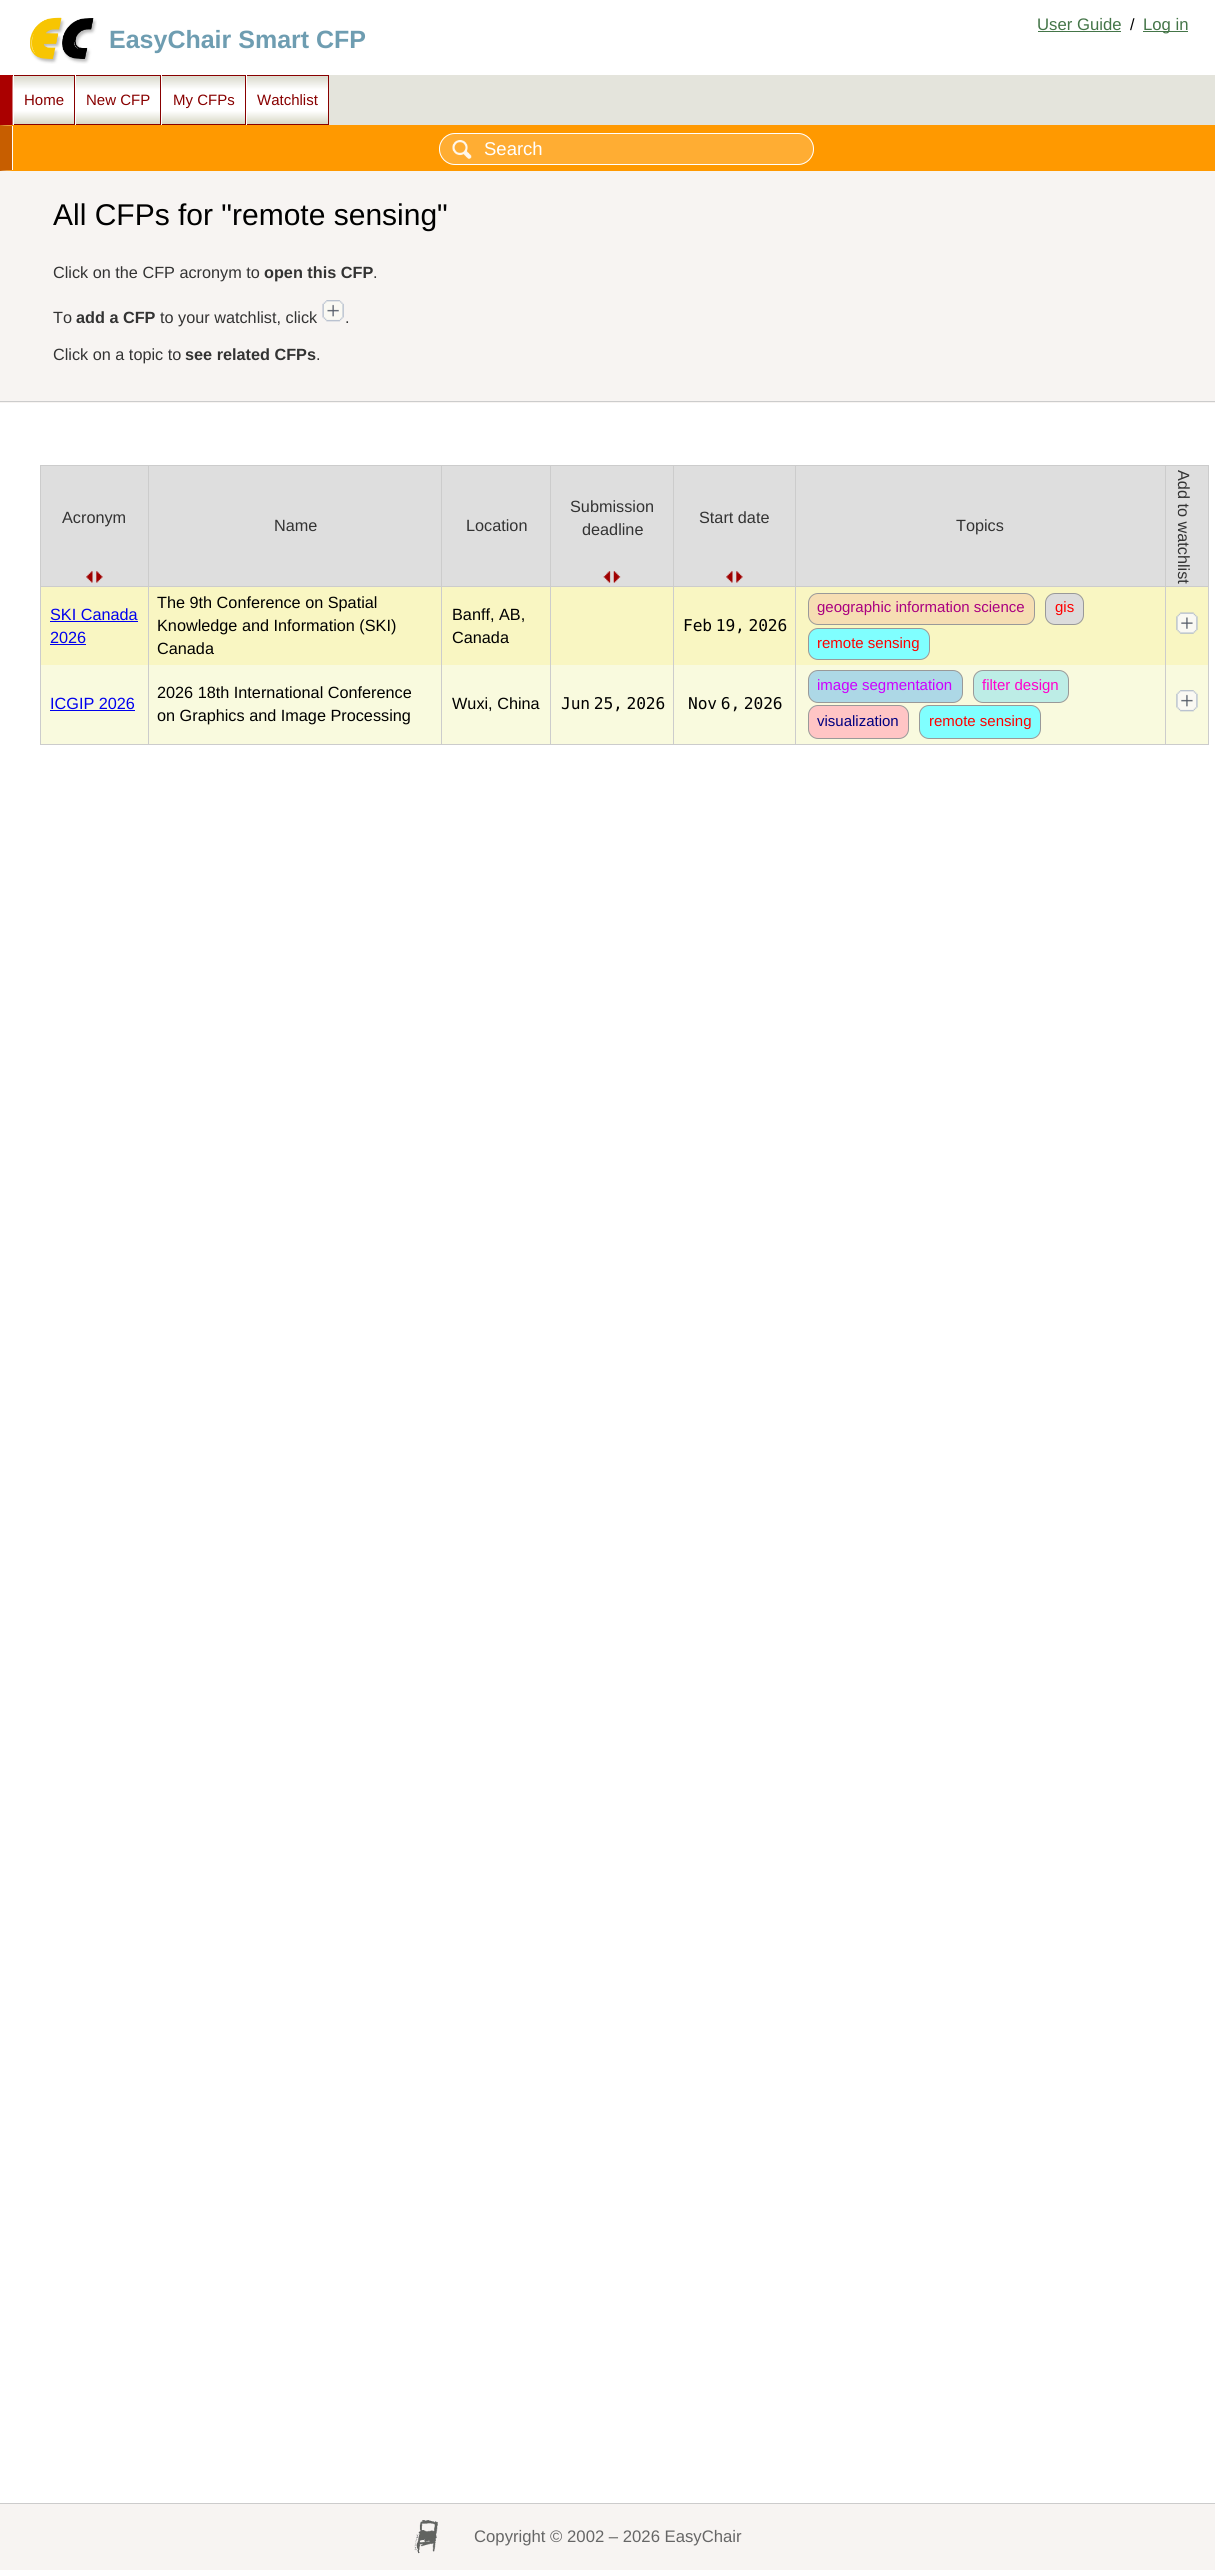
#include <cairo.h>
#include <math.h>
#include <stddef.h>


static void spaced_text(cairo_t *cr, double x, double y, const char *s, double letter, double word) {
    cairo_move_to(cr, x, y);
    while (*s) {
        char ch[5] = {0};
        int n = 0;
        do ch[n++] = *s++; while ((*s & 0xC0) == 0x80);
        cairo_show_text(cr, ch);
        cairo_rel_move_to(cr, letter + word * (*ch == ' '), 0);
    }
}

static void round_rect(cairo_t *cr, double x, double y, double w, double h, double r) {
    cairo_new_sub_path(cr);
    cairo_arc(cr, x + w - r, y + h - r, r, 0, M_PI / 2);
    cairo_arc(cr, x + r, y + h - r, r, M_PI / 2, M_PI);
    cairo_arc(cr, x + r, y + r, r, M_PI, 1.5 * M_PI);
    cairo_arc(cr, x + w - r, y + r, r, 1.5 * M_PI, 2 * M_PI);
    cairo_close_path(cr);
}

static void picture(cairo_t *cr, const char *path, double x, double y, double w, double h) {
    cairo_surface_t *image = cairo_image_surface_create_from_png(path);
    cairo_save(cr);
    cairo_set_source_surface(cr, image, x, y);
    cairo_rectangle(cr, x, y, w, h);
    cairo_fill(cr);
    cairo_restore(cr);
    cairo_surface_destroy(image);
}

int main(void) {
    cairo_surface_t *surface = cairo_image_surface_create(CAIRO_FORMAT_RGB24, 1215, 2570);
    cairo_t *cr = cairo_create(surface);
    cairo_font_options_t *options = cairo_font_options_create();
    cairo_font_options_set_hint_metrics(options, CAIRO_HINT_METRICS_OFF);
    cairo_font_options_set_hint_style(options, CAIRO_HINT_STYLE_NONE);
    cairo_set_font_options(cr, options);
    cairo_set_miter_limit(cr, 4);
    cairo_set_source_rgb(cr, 1, 1, 1);
    cairo_paint(cr);
    picture(cr, "img1.png", 30, 17, 67, 47);
    cairo_select_font_face(cr, "Liberation Sans", CAIRO_FONT_SLANT_NORMAL, CAIRO_FONT_WEIGHT_NORMAL);
    cairo_set_font_size(cr, 16.7);
    cairo_set_source_rgb(cr, 0.267, 0.459, 0.282);
    cairo_move_to(cr, 1037, 30);
    cairo_show_text(cr, "User Guide");
    cairo_rectangle(cr, 1038, 31, 83, 1);
    cairo_fill(cr);
    cairo_set_font_size(cr, 16.25);
    cairo_set_source_rgb(cr, 0, 0, 0);
    cairo_move_to(cr, 1130, 30);
    cairo_show_text(cr, "/");
    cairo_set_source_rgb(cr, 0.267, 0.459, 0.282);
    cairo_rectangle(cr, 1143, 31, 45, 1);
    cairo_fill(cr);
    cairo_set_font_size(cr, 16.7);
    cairo_move_to(cr, 1143, 30);
    cairo_show_text(cr, "Log in");
    cairo_select_font_face(cr, "Liberation Sans", CAIRO_FONT_SLANT_NORMAL, CAIRO_FONT_WEIGHT_BOLD);
    cairo_set_font_size(cr, 25);
    cairo_set_source_rgb(cr, 0.431, 0.616, 0.694);
    cairo_move_to(cr, 109, 48);
    cairo_show_text(cr, "EasyChair Smart CFP");
    cairo_set_source_rgb(cr, 0.894, 0.894, 0.863);
    cairo_rectangle(cr, 14, 75, 1201, 50);
    cairo_fill(cr);
    cairo_set_source_rgb(cr, 0.667, 0, 0);
    cairo_rectangle(cr, 0, 75, 13, 50);
    cairo_fill(cr);
    picture(cr, "img2.png", 12, 76, 62, 49);
    cairo_set_source_rgb(cr, 0.533, 0, 0);
    cairo_rectangle(cr, 13, 75, 316, 1);
    cairo_fill(cr);
    cairo_rectangle(cr, 74, 75, 1, 50);
    cairo_fill(cr);
    cairo_rectangle(cr, 13, 124, 62, 1);
    cairo_fill(cr);
    cairo_set_source_rgb(cr, 1, 1, 1);
    cairo_rectangle(cr, 13, 75, 1, 50);
    cairo_fill(cr);
    cairo_select_font_face(cr, "Liberation Sans", CAIRO_FONT_SLANT_NORMAL, CAIRO_FONT_WEIGHT_NORMAL);
    cairo_set_font_size(cr, 15);
    cairo_set_source_rgb(cr, 0.533, 0, 0);
    cairo_move_to(cr, 24, 105);
    cairo_show_text(cr, "Home");
    picture(cr, "img3.png", 76, 76, 84, 48);
    cairo_rectangle(cr, 160, 75, 1, 50);
    cairo_fill(cr);
    cairo_rectangle(cr, 75, 124, 86, 1);
    cairo_fill(cr);
    cairo_set_source_rgb(cr, 1, 1, 1);
    cairo_rectangle(cr, 75, 75, 1, 50);
    cairo_fill(cr);
    cairo_set_source_rgb(cr, 0.533, 0, 0);
    cairo_move_to(cr, 86, 105);
    cairo_show_text(cr, "New CFP");
    picture(cr, "img4.png", 162, 76, 83, 48);
    cairo_rectangle(cr, 245, 75, 1, 50);
    cairo_fill(cr);
    cairo_rectangle(cr, 161, 124, 85, 1);
    cairo_fill(cr);
    cairo_set_source_rgb(cr, 1, 1, 1);
    cairo_rectangle(cr, 161, 75, 1, 50);
    cairo_fill(cr);
    cairo_set_source_rgb(cr, 0.533, 0, 0);
    cairo_move_to(cr, 173, 105);
    cairo_show_text(cr, "My CFPs");
    picture(cr, "img5.png", 247, 76, 81, 48);
    cairo_rectangle(cr, 328, 75, 1, 50);
    cairo_fill(cr);
    cairo_rectangle(cr, 246, 124, 83, 1);
    cairo_fill(cr);
    cairo_set_source_rgb(cr, 1, 1, 1);
    cairo_rectangle(cr, 246, 75, 1, 50);
    cairo_fill(cr);
    cairo_set_source_rgb(cr, 0.533, 0, 0);
    cairo_move_to(cr, 257, 105);
    cairo_show_text(cr, "Watchlist");
    cairo_set_source_rgb(cr, 1, 0.6, 0);
    cairo_rectangle(cr, 13, 126, 1201, 44);
    cairo_fill(cr);
    cairo_new_path(cr);
    cairo_move_to(cr, 0, 125);
    cairo_line_to(cr, 1215, 125);
    cairo_line_to(cr, 1214, 126);
    cairo_line_to(cr, 12, 126);
    cairo_close_path(cr);
    cairo_fill(cr);
    cairo_rectangle(cr, 1214, 125, 1, 46);
    cairo_fill(cr);
    cairo_new_path(cr);
    cairo_move_to(cr, 1215, 171);
    cairo_line_to(cr, 0, 171);
    cairo_line_to(cr, 12, 170);
    cairo_line_to(cr, 1214, 170);
    cairo_close_path(cr);
    cairo_fill(cr);
    cairo_set_source_rgb(cr, 0.78, 0.369, 0);
    cairo_new_path(cr);
    cairo_move_to(cr, 0, 171);
    cairo_line_to(cr, 0, 125);
    cairo_line_to(cr, 12, 126);
    cairo_line_to(cr, 12, 170);
    cairo_close_path(cr);
    cairo_fill(cr);
    cairo_set_source_rgb(cr, 1, 0.678, 0.2);
    round_rect(cr, 439, 133, 375, 32, 16);
    cairo_fill(cr);
    picture(cr, "img6.png", 452, 140, 20, 19);
    round_rect(cr, 439.5, 133.5, 374, 31, 15.5);
    cairo_set_source_rgb(cr, 1, 1, 1);
    cairo_set_line_width(cr, 1);
    cairo_stroke(cr);
    cairo_set_font_size(cr, 18.5);
    cairo_move_to(cr, 484, 155);
    cairo_show_text(cr, "Search");
    cairo_set_source_rgb(cr, 0.965, 0.957, 0.949);
    cairo_rectangle(cr, 0, 171, 1215, 232);
    cairo_fill(cr);
    cairo_set_source_rgb(cr, 0.8, 0.8, 0.8);
    cairo_rectangle(cr, 0, 401, 1215, 1);
    cairo_fill(cr);
    cairo_set_font_size(cr, 30);
    cairo_set_source_rgb(cr, 0, 0, 0);
    cairo_move_to(cr, 53, 225);
    cairo_show_text(cr, "All CFPs for \"remote sensing\"");
    cairo_set_font_size(cr, 16.25);
    cairo_set_source_rgb(cr, 0.2, 0.2, 0.2);
    cairo_move_to(cr, 53, 278);
    cairo_show_text(cr, "Click on the CFP acronym to");
    cairo_select_font_face(cr, "Liberation Sans", CAIRO_FONT_SLANT_NORMAL, CAIRO_FONT_WEIGHT_BOLD);
    cairo_move_to(cr, 264, 278);
    cairo_show_text(cr, "open this CFP");
    cairo_select_font_face(cr, "Liberation Sans", CAIRO_FONT_SLANT_NORMAL, CAIRO_FONT_WEIGHT_NORMAL);
    cairo_move_to(cr, 373, 278);
    cairo_show_text(cr, ".");
    cairo_move_to(cr, 53, 323);
    cairo_show_text(cr, "To");
    cairo_select_font_face(cr, "Liberation Sans", CAIRO_FONT_SLANT_NORMAL, CAIRO_FONT_WEIGHT_BOLD);
    cairo_move_to(cr, 76, 323);
    cairo_show_text(cr, "add a CFP");
    cairo_select_font_face(cr, "Liberation Sans", CAIRO_FONT_SLANT_NORMAL, CAIRO_FONT_WEIGHT_NORMAL);
    cairo_move_to(cr, 160, 323);
    cairo_show_text(cr, "to your watchlist, click");
    picture(cr, "img7.png", 322, 300, 22, 22);
    cairo_move_to(cr, 345, 323);
    cairo_show_text(cr, ".");
    cairo_move_to(cr, 53, 360);
    cairo_show_text(cr, "Click on a topic to");
    cairo_select_font_face(cr, "Liberation Sans", CAIRO_FONT_SLANT_NORMAL, CAIRO_FONT_WEIGHT_BOLD);
    cairo_move_to(cr, 185, 360);
    cairo_show_text(cr, "see related CFPs");
    cairo_select_font_face(cr, "Liberation Sans", CAIRO_FONT_SLANT_NORMAL, CAIRO_FONT_WEIGHT_NORMAL);
    cairo_move_to(cr, 316, 360);
    cairo_show_text(cr, ".");
    cairo_set_source_rgb(cr, 0.8, 0.8, 0.8);
    cairo_rectangle(cr, 40, 465, 1169, 1);
    cairo_fill(cr);
    cairo_rectangle(cr, 1208, 465, 1, 280);
    cairo_fill(cr);
    cairo_rectangle(cr, 40, 744, 1169, 1);
    cairo_fill(cr);
    cairo_rectangle(cr, 40, 465, 1, 280);
    cairo_fill(cr);
    cairo_set_source_rgb(cr, 0.871, 0.871, 0.871);
    cairo_rectangle(cr, 41, 466, 107, 120);
    cairo_fill(cr);
    picture(cr, "img8.png", 86, 571, 17, 12);
    cairo_set_source_rgb(cr, 0.973, 0.961, 0.761);
    cairo_rectangle(cr, 41, 587, 1167, 78);
    cairo_fill(cr);
    cairo_set_source_rgb(cr, 0.976, 0.98, 0.871);
    cairo_rectangle(cr, 41, 665, 1167, 79);
    cairo_fill(cr);
    cairo_set_source_rgb(cr, 0.8, 0.8, 0.8);
    cairo_rectangle(cr, 1165, 586, 1, 159);
    cairo_fill(cr);
    cairo_rectangle(cr, 1165, 586, 44, 1);
    cairo_fill(cr);
    cairo_rectangle(cr, 1165, 465, 1, 123);
    cairo_fill(cr);
    cairo_rectangle(cr, 795, 586, 1, 159);
    cairo_fill(cr);
    cairo_rectangle(cr, 795, 586, 371, 1);
    cairo_fill(cr);
    cairo_rectangle(cr, 795, 465, 1, 123);
    cairo_fill(cr);
    cairo_rectangle(cr, 673, 586, 1, 159);
    cairo_fill(cr);
    cairo_rectangle(cr, 673, 586, 123, 1);
    cairo_fill(cr);
    cairo_rectangle(cr, 673, 465, 1, 123);
    cairo_fill(cr);
    cairo_rectangle(cr, 550, 586, 1, 159);
    cairo_fill(cr);
    cairo_rectangle(cr, 550, 586, 124, 1);
    cairo_fill(cr);
    cairo_rectangle(cr, 550, 465, 1, 123);
    cairo_fill(cr);
    cairo_rectangle(cr, 441, 586, 1, 159);
    cairo_fill(cr);
    cairo_rectangle(cr, 441, 586, 110, 1);
    cairo_fill(cr);
    cairo_set_source_rgb(cr, 0.871, 0.871, 0.871);
    cairo_rectangle(cr, 149, 466, 401, 120);
    cairo_fill(cr);
    cairo_set_source_rgb(cr, 0.8, 0.8, 0.8);
    cairo_rectangle(cr, 441, 465, 1, 123);
    cairo_fill(cr);
    cairo_rectangle(cr, 148, 586, 1, 159);
    cairo_fill(cr);
    cairo_rectangle(cr, 148, 586, 295, 1);
    cairo_fill(cr);
    cairo_rectangle(cr, 148, 465, 1, 123);
    cairo_fill(cr);
    cairo_rectangle(cr, 40, 586, 109, 1);
    cairo_fill(cr);
    cairo_set_source_rgb(cr, 0.2, 0.2, 0.2);
    cairo_move_to(cr, 62, 523);
    cairo_show_text(cr, "Acronym");
    cairo_set_source_rgb(cr, 0.871, 0.871, 0.871);
    cairo_rectangle(cr, 551, 466, 122, 120);
    cairo_fill(cr);
    picture(cr, "img9.png", 603, 571, 18, 12);
    cairo_set_source_rgb(cr, 0.2, 0.2, 0.2);
    cairo_move_to(cr, 570, 512);
    cairo_show_text(cr, "Submission");
    cairo_move_to(cr, 582, 535);
    cairo_show_text(cr, "deadline");
    cairo_set_source_rgb(cr, 0.871, 0.871, 0.871);
    cairo_rectangle(cr, 674, 466, 121, 120);
    cairo_fill(cr);
    picture(cr, "img8.png", 726, 571, 17, 12);
    cairo_set_source_rgb(cr, 0.2, 0.2, 0.2);
    cairo_move_to(cr, 699, 523);
    cairo_show_text(cr, "Start date");
    cairo_set_source_rgb(cr, 0.871, 0.871, 0.871);
    cairo_rectangle(cr, 1166, 466, 42, 120);
    cairo_fill(cr);
    cairo_set_source_rgb(cr, 0.2, 0.2, 0.2);
    cairo_save(cr);
    cairo_translate(cr, 1178, 470);
    cairo_rotate(cr, 90 * M_PI / 180);
    cairo_move_to(cr, 0, 0);
    cairo_show_text(cr, "Add to watchlist");
    cairo_restore(cr);
    cairo_move_to(cr, 274, 531);
    cairo_show_text(cr, "Name");
    cairo_move_to(cr, 466, 531);
    cairo_show_text(cr, "Location");
    cairo_set_source_rgb(cr, 0.871, 0.871, 0.871);
    cairo_rectangle(cr, 796, 466, 369, 120);
    cairo_fill(cr);
    cairo_set_source_rgb(cr, 0.2, 0.2, 0.2);
    cairo_move_to(cr, 956, 531);
    cairo_show_text(cr, "Topics");
    cairo_set_source_rgb(cr, 0, 0, 0.933);
    cairo_move_to(cr, 50, 620);
    cairo_show_text(cr, "SKI Canada");
    cairo_rectangle(cr, 50, 621, 88, 1);
    cairo_fill(cr);
    cairo_move_to(cr, 50, 643);
    cairo_show_text(cr, "2026");
    cairo_rectangle(cr, 50, 644, 36, 1);
    cairo_fill(cr);
    cairo_set_source_rgb(cr, 0, 0, 0);
    cairo_move_to(cr, 157, 608);
    cairo_show_text(cr, "The 9th Conference on Spatial");
    cairo_move_to(cr, 157, 631);
    cairo_show_text(cr, "Knowledge and Information (SKI)");
    cairo_move_to(cr, 157, 654);
    cairo_show_text(cr, "Canada");
    cairo_move_to(cr, 452, 620);
    cairo_show_text(cr, "Banff, AB,");
    cairo_move_to(cr, 452, 643);
    cairo_show_text(cr, "Canada");
    cairo_select_font_face(cr, "DejaVu Sans Mono", CAIRO_FONT_SLANT_NORMAL, CAIRO_FONT_WEIGHT_NORMAL);
    spaced_text(cr, 683, 631, "Feb 19, 2026", -0.1, -6);
    cairo_set_source_rgb(cr, 0.961, 0.871, 0.702);
    round_rect(cr, 808.5, 593.5, 226, 31, 9.5);
    cairo_fill_preserve(cr);
    cairo_set_source_rgb(cr, 0.6, 0.6, 0.6);
    cairo_stroke(cr);
    cairo_select_font_face(cr, "Liberation Sans", CAIRO_FONT_SLANT_NORMAL, CAIRO_FONT_WEIGHT_NORMAL);
    cairo_set_font_size(cr, 15);
    cairo_set_source_rgb(cr, 0.667, 0, 0.502);
    cairo_move_to(cr, 817, 612);
    cairo_show_text(cr, "geographic information science");
    cairo_set_source_rgb(cr, 0.863, 0.863, 0.863);
    round_rect(cr, 1045.5, 593.5, 38, 31, 9.5);
    cairo_fill_preserve(cr);
    cairo_set_source_rgb(cr, 0.6, 0.6, 0.6);
    cairo_stroke(cr);
    cairo_set_source_rgb(cr, 1, 0, 0);
    cairo_move_to(cr, 1055, 612);
    cairo_show_text(cr, "gis");
    cairo_set_source_rgb(cr, 0.502, 1, 1);
    round_rect(cr, 808.5, 628.5, 121, 31, 9.5);
    cairo_fill_preserve(cr);
    cairo_set_source_rgb(cr, 0.6, 0.6, 0.6);
    cairo_stroke(cr);
    cairo_set_source_rgb(cr, 1, 0, 0);
    cairo_move_to(cr, 817, 648);
    cairo_show_text(cr, "remote sensing");
    picture(cr, "img10.png", 1176, 612, 22, 22);
    cairo_set_font_size(cr, 16.25);
    cairo_set_source_rgb(cr, 0, 0, 0.933);
    cairo_move_to(cr, 50, 709);
    cairo_show_text(cr, "ICGIP 2026");
    cairo_rectangle(cr, 50, 710, 85, 1);
    cairo_fill(cr);
    cairo_set_source_rgb(cr, 0, 0, 0);
    cairo_move_to(cr, 157, 698);
    cairo_show_text(cr, "2026 18th International Conference");
    cairo_move_to(cr, 157, 721);
    cairo_show_text(cr, "on Graphics and Image Processing");
    cairo_move_to(cr, 452, 709);
    cairo_show_text(cr, "Wuxi, China");
    cairo_select_font_face(cr, "DejaVu Sans Mono", CAIRO_FONT_SLANT_NORMAL, CAIRO_FONT_WEIGHT_NORMAL);
    spaced_text(cr, 561, 709, "Jun 25, 2026", -0.1, -6);
    spaced_text(cr, 688, 709, "Nov 6, 2026", -0.1, -6);
    cairo_set_source_rgb(cr, 0.678, 0.847, 0.902);
    round_rect(cr, 808.5, 670.5, 154, 32, 9.5);
    cairo_fill_preserve(cr);
    cairo_set_source_rgb(cr, 0.6, 0.6, 0.6);
    cairo_stroke(cr);
    cairo_select_font_face(cr, "Liberation Sans", CAIRO_FONT_SLANT_NORMAL, CAIRO_FONT_WEIGHT_NORMAL);
    cairo_set_font_size(cr, 15);
    cairo_set_source_rgb(cr, 0.8, 0, 1);
    cairo_move_to(cr, 817, 690);
    cairo_show_text(cr, "image segmentation");
    cairo_set_source_rgb(cr, 0.741, 0.929, 0.902);
    round_rect(cr, 973.5, 670.5, 95, 32, 9.5);
    cairo_fill_preserve(cr);
    cairo_set_source_rgb(cr, 0.6, 0.6, 0.6);
    cairo_stroke(cr);
    cairo_set_source_rgb(cr, 1, 0, 0.8);
    cairo_move_to(cr, 982, 690);
    cairo_show_text(cr, "filter design");
    cairo_set_source_rgb(cr, 1, 0.773, 0.773);
    round_rect(cr, 808.5, 705.5, 100, 33, 9.5);
    cairo_fill_preserve(cr);
    cairo_set_source_rgb(cr, 0.6, 0.6, 0.6);
    cairo_stroke(cr);
    cairo_set_source_rgb(cr, 0, 0, 0.502);
    cairo_move_to(cr, 817, 726);
    cairo_show_text(cr, "visualization");
    cairo_set_source_rgb(cr, 0.502, 1, 1);
    round_rect(cr, 919.5, 705.5, 121, 33, 9.5);
    cairo_fill_preserve(cr);
    cairo_set_source_rgb(cr, 0.6, 0.6, 0.6);
    cairo_stroke(cr);
    cairo_set_source_rgb(cr, 1, 0, 0);
    cairo_move_to(cr, 929, 726);
    cairo_show_text(cr, "remote sensing");
    picture(cr, "img11.png", 1176, 690, 22, 22);
    cairo_set_source_rgb(cr, 0.965, 0.957, 0.949);
    cairo_rectangle(cr, 0, 2504, 1215, 66);
    cairo_fill(cr);
    picture(cr, "img12.png", 414, 2520, 24, 34);
    cairo_set_source_rgb(cr, 0.8, 0.8, 0.8);
    cairo_rectangle(cr, 0, 2503, 1215, 1);
    cairo_fill(cr);
    cairo_set_font_size(cr, 16.7);
    cairo_set_source_rgb(cr, 0.4, 0.4, 0.4);
    cairo_move_to(cr, 474, 2542);
    cairo_show_text(cr, "Copyright © 2002 – 2026 EasyChair");
    cairo_surface_write_to_png(surface, "page.png");
    cairo_font_options_destroy(options);
    cairo_destroy(cr);
    cairo_surface_destroy(surface);
    return 0;
}
